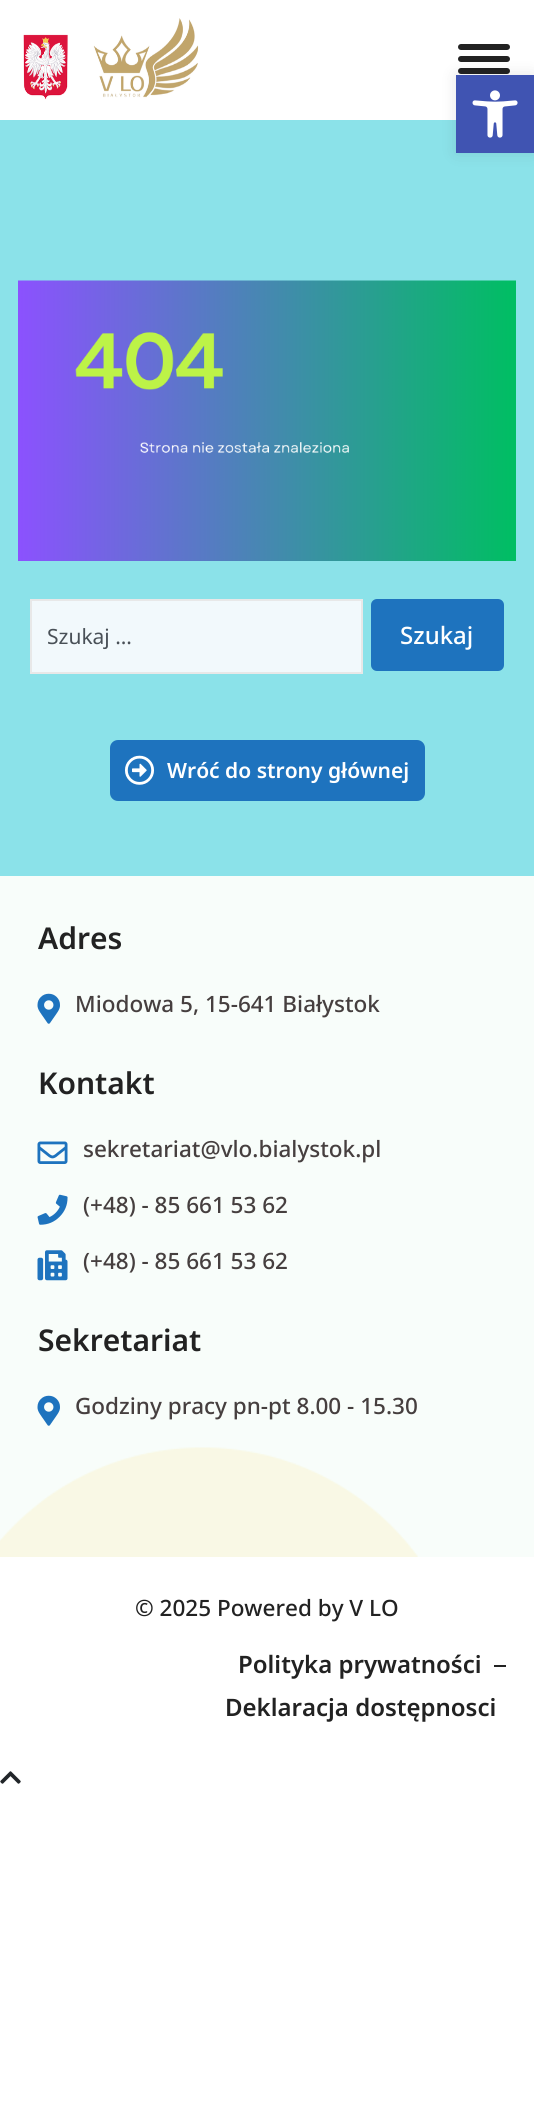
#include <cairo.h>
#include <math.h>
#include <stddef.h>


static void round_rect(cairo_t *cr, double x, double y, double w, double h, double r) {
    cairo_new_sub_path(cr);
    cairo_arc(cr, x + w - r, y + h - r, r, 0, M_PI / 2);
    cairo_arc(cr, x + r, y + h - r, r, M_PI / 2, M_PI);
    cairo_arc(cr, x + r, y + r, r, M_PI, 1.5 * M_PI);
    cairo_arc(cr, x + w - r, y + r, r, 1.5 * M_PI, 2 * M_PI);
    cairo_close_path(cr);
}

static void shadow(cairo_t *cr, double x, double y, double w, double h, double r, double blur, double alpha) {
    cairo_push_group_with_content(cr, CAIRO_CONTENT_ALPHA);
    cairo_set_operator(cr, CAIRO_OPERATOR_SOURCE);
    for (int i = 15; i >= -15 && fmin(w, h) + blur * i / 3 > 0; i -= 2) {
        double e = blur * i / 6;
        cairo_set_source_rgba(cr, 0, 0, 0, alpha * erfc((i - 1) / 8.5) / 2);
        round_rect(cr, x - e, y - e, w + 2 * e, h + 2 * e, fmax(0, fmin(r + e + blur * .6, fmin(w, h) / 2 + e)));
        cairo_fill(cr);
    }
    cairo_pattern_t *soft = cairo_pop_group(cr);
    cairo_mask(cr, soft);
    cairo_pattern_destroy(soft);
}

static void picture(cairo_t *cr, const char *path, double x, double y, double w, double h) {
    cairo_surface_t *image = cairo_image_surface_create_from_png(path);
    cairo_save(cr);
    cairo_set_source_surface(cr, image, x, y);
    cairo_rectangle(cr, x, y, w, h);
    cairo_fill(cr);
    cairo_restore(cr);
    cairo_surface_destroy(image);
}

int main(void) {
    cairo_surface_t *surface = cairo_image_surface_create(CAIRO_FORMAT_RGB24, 534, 2114);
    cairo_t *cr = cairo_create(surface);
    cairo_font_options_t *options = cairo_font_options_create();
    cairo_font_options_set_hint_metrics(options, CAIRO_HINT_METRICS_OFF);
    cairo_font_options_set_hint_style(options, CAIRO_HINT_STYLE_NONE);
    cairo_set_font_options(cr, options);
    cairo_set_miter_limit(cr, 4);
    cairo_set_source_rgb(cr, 1, 1, 1);
    cairo_paint(cr);
    cairo_set_source_rgb(cr, 0.133, 0.133, 0.133);
    round_rect(cr, 458, 56, 52, 6, 3);
    cairo_fill(cr);
    round_rect(cr, 458, 68, 52, 6, 3);
    cairo_fill(cr);
    cairo_set_source_rgb(cr, 0.545, 0.886, 0.914);
    cairo_rectangle(cr, 0, 120, 534, 756);
    cairo_fill(cr);
    cairo_set_source_rgb(cr, 0, 0, 0);
    shadow(cr, 456, 75, 78, 78, 0, 7.5, 0.1);
    cairo_set_source_rgb(cr, 0.251, 0.329, 0.698);
    cairo_rectangle(cr, 456, 75, 78, 78);
    cairo_fill(cr);
    picture(cr, "img1.png", 472, 90, 46, 48);
    picture(cr, "img2.png", 23, 18, 176, 82);
    cairo_set_source_rgb(cr, 0.133, 0.133, 0.133);
    round_rect(cr, 458, 44, 52, 6, 3);
    cairo_fill(cr);
    picture(cr, "img3.png", 18, 280, 498, 281);
    cairo_set_source_rgb(cr, 0.949, 0.976, 0.988);
    cairo_rectangle(cr, 31, 600, 331, 73);
    cairo_fill_preserve(cr);
    cairo_set_source_rgb(cr, 0.91, 0.91, 0.91);
    cairo_stroke(cr);
    cairo_select_font_face(cr, "Noto Sans", CAIRO_FONT_SLANT_NORMAL, CAIRO_FONT_WEIGHT_NORMAL);
    cairo_set_font_size(cr, 21);
    cairo_set_source_rgb(cr, 0.286, 0.314, 0.341);
    cairo_move_to(cr, 47, 644);
    cairo_show_text(cr, "Szukaj …");
    cairo_set_source_rgb(cr, 0.118, 0.451, 0.745);
    round_rect(cr, 371, 599, 133, 72, 6);
    cairo_fill(cr);
    cairo_select_font_face(cr, "Noto Sans Medium", CAIRO_FONT_SLANT_NORMAL, CAIRO_FONT_WEIGHT_NORMAL);
    cairo_set_font_size(cr, 24);
    cairo_set_source_rgb(cr, 1, 1, 1);
    cairo_move_to(cr, 400, 644);
    cairo_show_text(cr, "Szukaj");
    cairo_set_source_rgb(cr, 0.118, 0.451, 0.745);
    round_rect(cr, 110, 740, 315, 61, 8);
    cairo_fill(cr);
    picture(cr, "img4.png", 125, 755, 29, 30);
    cairo_select_font_face(cr, "Noto Sans SemiBold", CAIRO_FONT_SLANT_NORMAL, CAIRO_FONT_WEIGHT_NORMAL);
    cairo_set_font_size(cr, 21);
    cairo_set_source_rgb(cr, 1, 1, 1);
    cairo_move_to(cr, 167, 778);
    cairo_show_text(cr, "Wróć do strony głównej");
    cairo_set_source_rgb(cr, 0.969, 0.992, 0.98);
    cairo_rectangle(cr, 0, 876, 534, 681);
    cairo_fill(cr);
    cairo_set_font_size(cr, 30);
    cairo_set_source_rgb(cr, 0.133, 0.133, 0.133);
    cairo_move_to(cr, 38, 949);
    cairo_show_text(cr, "Adres");
    picture(cr, "img5.png", 37, 993, 23, 31);
    cairo_select_font_face(cr, "Noto Sans Medium", CAIRO_FONT_SLANT_NORMAL, CAIRO_FONT_WEIGHT_NORMAL);
    cairo_set_font_size(cr, 22.5);
    cairo_set_source_rgb(cr, 0.275, 0.247, 0.247);
    cairo_move_to(cr, 75, 1012);
    cairo_show_text(cr, "Miodowa 5, 15-641 Białystok");
    cairo_select_font_face(cr, "Noto Sans SemiBold", CAIRO_FONT_SLANT_NORMAL, CAIRO_FONT_WEIGHT_NORMAL);
    cairo_set_font_size(cr, 30);
    cairo_set_source_rgb(cr, 0.133, 0.133, 0.133);
    cairo_move_to(cr, 38, 1094);
    cairo_show_text(cr, "Kontakt");
    picture(cr, "img6.png", 37, 1141, 31, 23);
    cairo_select_font_face(cr, "Noto Sans Medium", CAIRO_FONT_SLANT_NORMAL, CAIRO_FONT_WEIGHT_NORMAL);
    cairo_set_font_size(cr, 22.5);
    cairo_set_source_rgb(cr, 0.275, 0.247, 0.247);
    cairo_move_to(cr, 83, 1157);
    cairo_show_text(cr, "sekretariat@vlo.bialystok.pl");
    picture(cr, "img7.png", 37, 1194, 31, 31);
    cairo_move_to(cr, 83, 1213);
    cairo_show_text(cr, "(+48) - 85 661 53 62");
    picture(cr, "img8.png", 37, 1250, 31, 31);
    cairo_move_to(cr, 83, 1269);
    cairo_show_text(cr, "(+48) - 85 661 53 62");
    cairo_select_font_face(cr, "Noto Sans SemiBold", CAIRO_FONT_SLANT_NORMAL, CAIRO_FONT_WEIGHT_NORMAL);
    cairo_set_font_size(cr, 30);
    cairo_set_source_rgb(cr, 0.133, 0.133, 0.133);
    cairo_move_to(cr, 38, 1351);
    cairo_show_text(cr, "Sekretariat");
    picture(cr, "img5.png", 37, 1395, 23, 31);
    cairo_select_font_face(cr, "Noto Sans Medium", CAIRO_FONT_SLANT_NORMAL, CAIRO_FONT_WEIGHT_NORMAL);
    cairo_set_font_size(cr, 22.5);
    cairo_set_source_rgb(cr, 0.275, 0.247, 0.247);
    cairo_move_to(cr, 75, 1414);
    cairo_show_text(cr, "Godziny pracy pn-pt 8.00 - 15.30");
    picture(cr, "img9.png", 0, 1447, 418, 110);
    cairo_set_source_rgb(cr, 0.133, 0.133, 0.133);
    cairo_move_to(cr, 135, 1616);
    cairo_show_text(cr, "© 2025 Powered by V LO");
    cairo_select_font_face(cr, "Noto Sans SemiBold", CAIRO_FONT_SLANT_NORMAL, CAIRO_FONT_WEIGHT_NORMAL);
    cairo_set_font_size(cr, 24);
    cairo_move_to(cr, 238, 1673);
    cairo_show_text(cr, "Polityka prywatności");
    cairo_rectangle(cr, 494, 1665, 12, 2);
    cairo_fill(cr);
    cairo_move_to(cr, 225, 1716);
    cairo_show_text(cr, "Deklaracja dostępnosci");
    picture(cr, "img10.png", 0, 1771, 21, 13);
    cairo_surface_write_to_png(surface, "page.png");
    cairo_font_options_destroy(options);
    cairo_destroy(cr);
    cairo_surface_destroy(surface);
    return 0;
}
